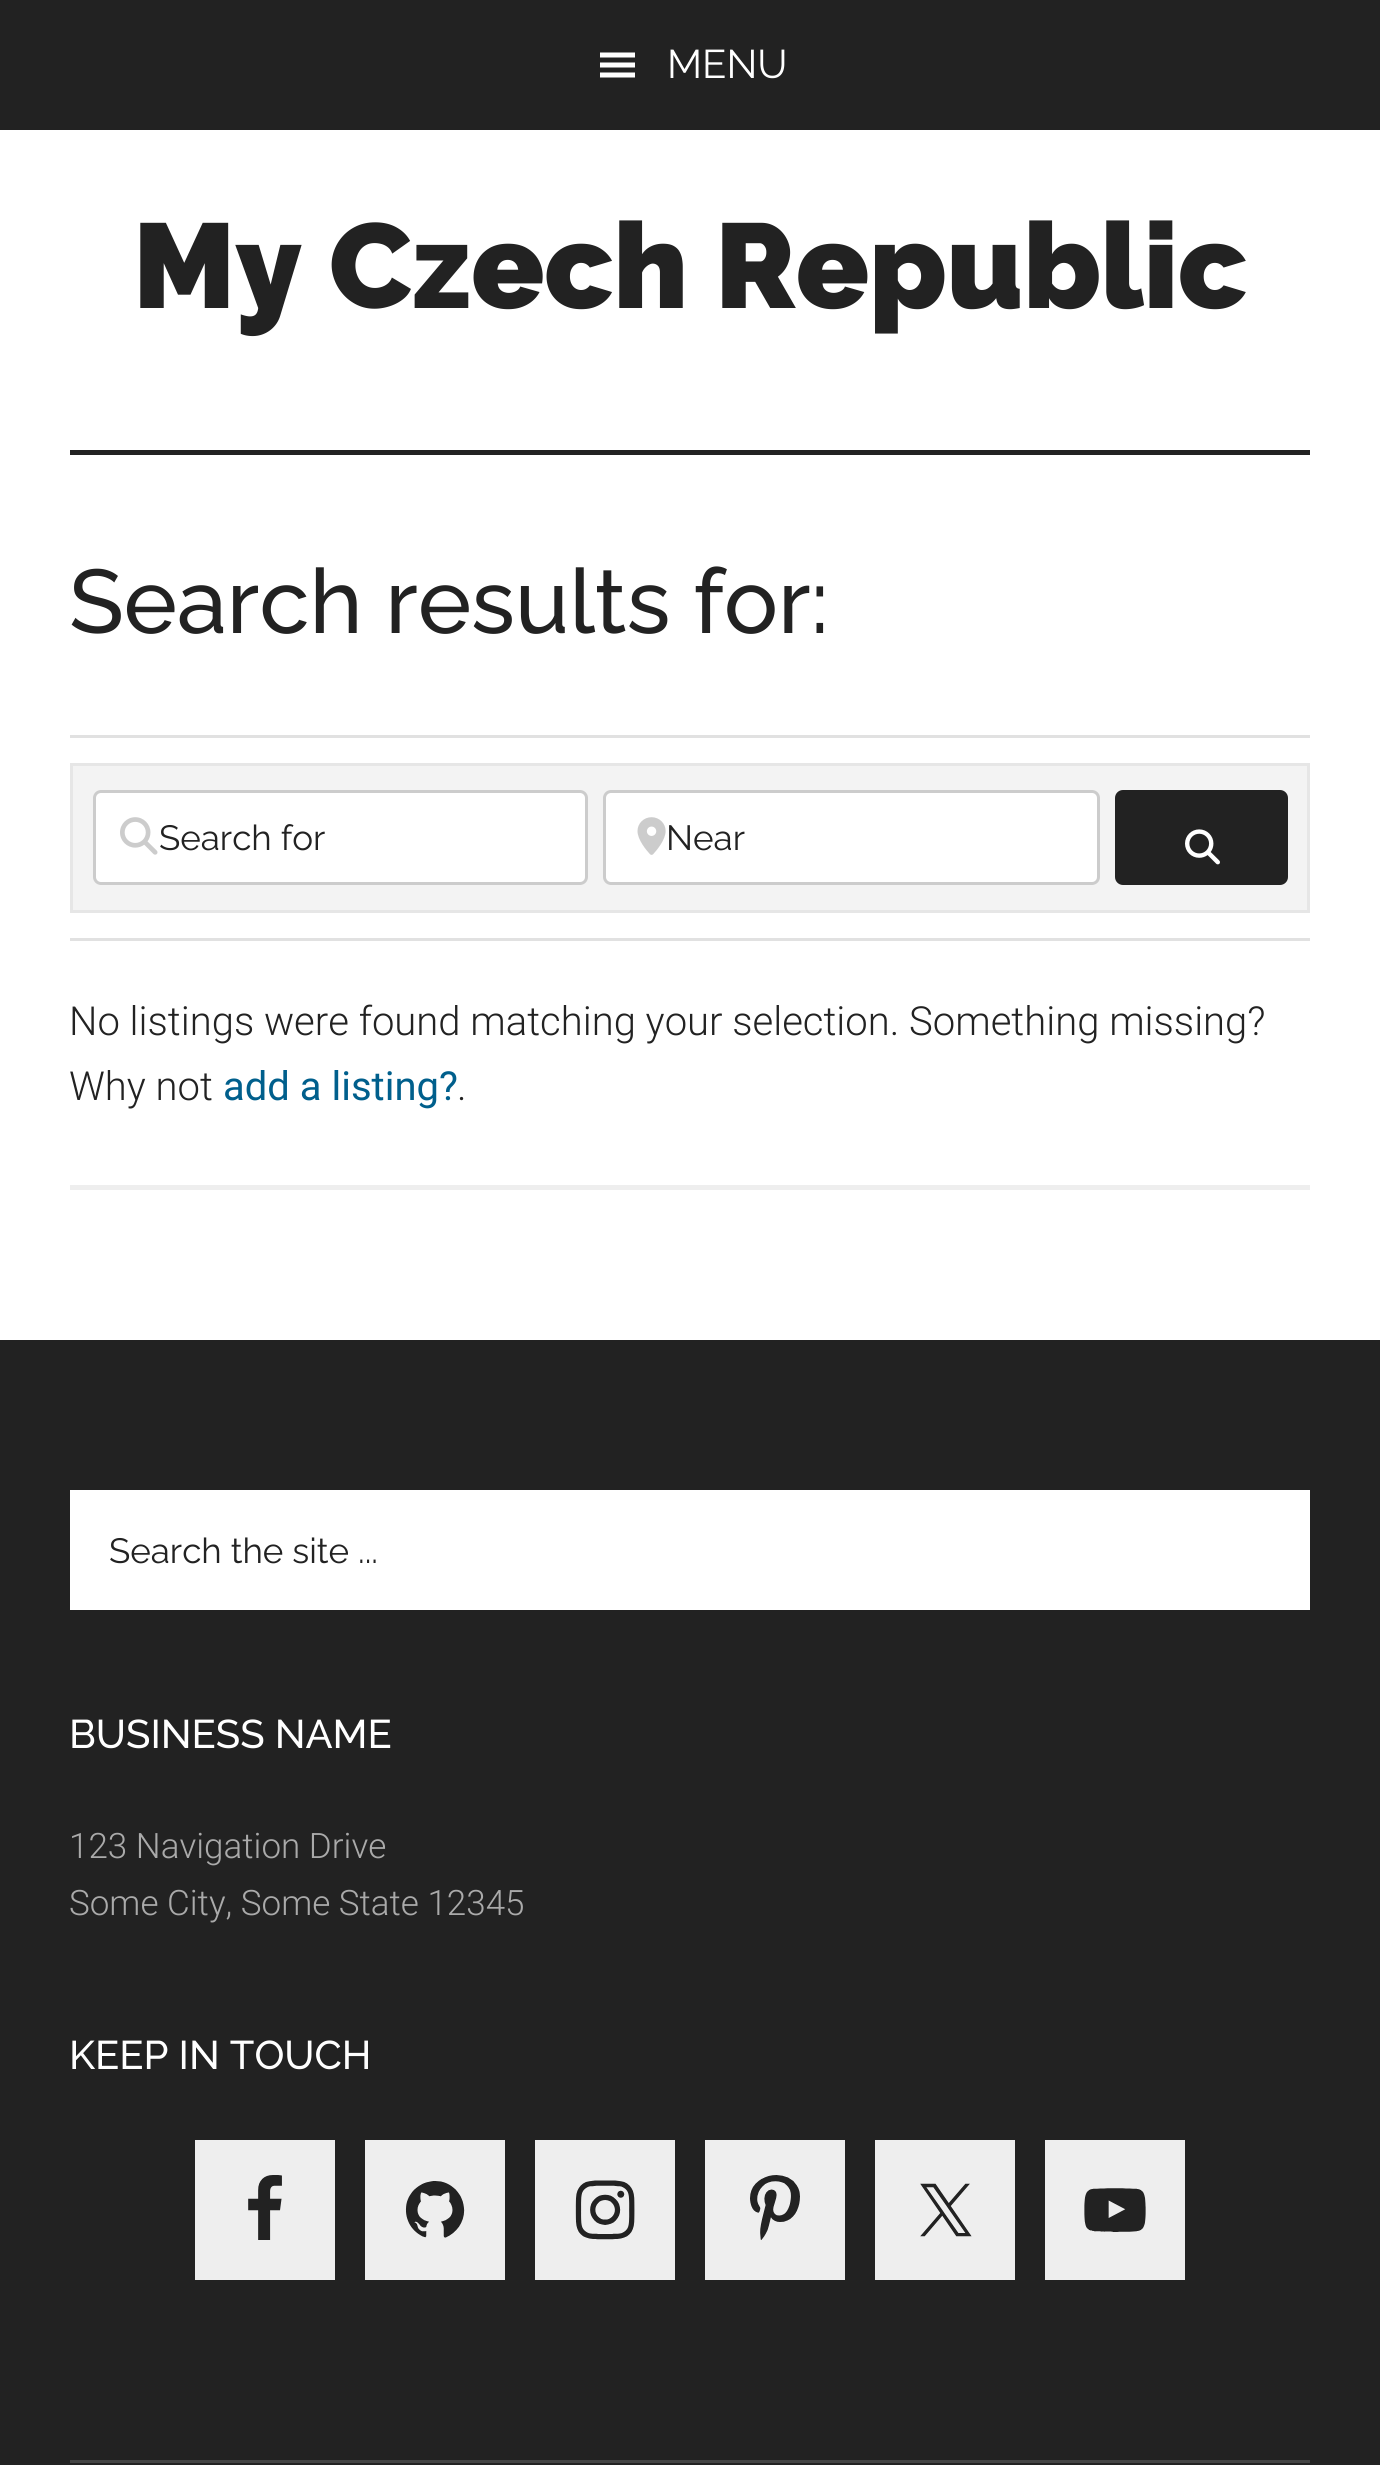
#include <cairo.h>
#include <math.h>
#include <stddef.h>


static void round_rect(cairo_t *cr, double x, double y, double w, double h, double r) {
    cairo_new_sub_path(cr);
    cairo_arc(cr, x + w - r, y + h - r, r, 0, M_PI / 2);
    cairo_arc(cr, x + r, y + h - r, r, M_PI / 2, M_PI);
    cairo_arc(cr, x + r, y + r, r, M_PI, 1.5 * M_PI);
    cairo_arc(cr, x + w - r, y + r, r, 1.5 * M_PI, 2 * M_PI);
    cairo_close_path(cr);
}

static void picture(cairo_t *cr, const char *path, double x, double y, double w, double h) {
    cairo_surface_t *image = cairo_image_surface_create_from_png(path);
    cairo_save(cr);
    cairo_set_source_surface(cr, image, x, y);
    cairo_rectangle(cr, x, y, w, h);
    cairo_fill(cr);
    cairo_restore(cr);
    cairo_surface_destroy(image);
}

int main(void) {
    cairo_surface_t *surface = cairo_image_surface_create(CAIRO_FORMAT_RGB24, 1380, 2465);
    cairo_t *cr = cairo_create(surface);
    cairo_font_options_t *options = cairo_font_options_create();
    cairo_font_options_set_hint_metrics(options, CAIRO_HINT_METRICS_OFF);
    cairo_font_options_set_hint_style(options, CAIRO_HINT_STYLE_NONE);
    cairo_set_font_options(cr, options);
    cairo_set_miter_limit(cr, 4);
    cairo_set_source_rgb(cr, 1, 1, 1);
    cairo_paint(cr);
    cairo_set_source_rgb(cr, 0.133, 0.133, 0.133);
    cairo_rectangle(cr, 0, 0, 1380, 130);
    cairo_fill(cr);
    cairo_set_source_rgb(cr, 1, 1, 1);
    cairo_new_path(cr);
    cairo_move_to(cr, 600, 77.5);
    cairo_line_to(cr, 635, 77.5);
    cairo_line_to(cr, 635, 72.5);
    cairo_line_to(cr, 600, 72.5);
    cairo_close_path(cr);
    cairo_move_to(cr, 600, 52.5);
    cairo_line_to(cr, 600, 57.5);
    cairo_line_to(cr, 635, 57.5);
    cairo_line_to(cr, 635, 52.5);
    cairo_close_path(cr);
    cairo_move_to(cr, 600, 67.5);
    cairo_line_to(cr, 635, 67.5);
    cairo_line_to(cr, 635, 62.5);
    cairo_line_to(cr, 600, 62.5);
    cairo_close_path(cr);
    cairo_fill(cr);
    cairo_select_font_face(cr, "Raleway", CAIRO_FONT_SLANT_NORMAL, CAIRO_FONT_WEIGHT_NORMAL);
    cairo_set_font_size(cr, 40);
    cairo_move_to(cr, 667, 78);
    cairo_show_text(cr, "MENU");
    cairo_set_source_rgb(cr, 0.133, 0.133, 0.133);
    cairo_rectangle(cr, 70, 450, 1240, 5);
    cairo_fill(cr);
    cairo_select_font_face(cr, "Raleway Black", CAIRO_FONT_SLANT_NORMAL, CAIRO_FONT_WEIGHT_NORMAL);
    cairo_set_font_size(cr, 120);
    cairo_move_to(cr, 133, 308);
    cairo_show_text(cr, "My Czech Republic");
    cairo_set_source_rgb(cr, 0.933, 0.933, 0.933);
    cairo_rectangle(cr, 70, 1185, 1240, 5);
    cairo_fill(cr);
    cairo_select_font_face(cr, "Raleway Medium", CAIRO_FONT_SLANT_NORMAL, CAIRO_FONT_WEIGHT_NORMAL);
    cairo_set_font_size(cr, 90);
    cairo_set_source_rgb(cr, 0.133, 0.133, 0.133);
    cairo_move_to(cr, 69, 633);
    cairo_show_text(cr, "Search results for:");
    cairo_set_source_rgb(cr, 0.882, 0.882, 0.882);
    cairo_rectangle(cr, 70, 735, 1240, 3);
    cairo_fill(cr);
    cairo_rectangle(cr, 70, 938, 1240, 3);
    cairo_fill(cr);
    cairo_set_source_rgb(cr, 0.953, 0.953, 0.953);
    cairo_rectangle(cr, 71.5, 764.5, 1237, 147);
    cairo_fill_preserve(cr);
    cairo_set_source_rgb(cr, 0.902, 0.902, 0.902);
    cairo_set_line_width(cr, 3);
    cairo_stroke(cr);
    cairo_set_source_rgb(cr, 1, 1, 1);
    round_rect(cr, 94.5, 791.5, 492, 92, 6.5);
    cairo_fill_preserve(cr);
    cairo_set_source_rgb(cr, 0.8, 0.8, 0.8);
    cairo_stroke(cr);
    picture(cr, "img1.png", 120, 817, 38, 38);
    cairo_select_font_face(cr, "Raleway", CAIRO_FONT_SLANT_NORMAL, CAIRO_FONT_WEIGHT_NORMAL);
    cairo_set_font_size(cr, 35);
    cairo_set_source_rgb(cr, 0.133, 0.133, 0.133);
    cairo_move_to(cr, 159, 850);
    cairo_show_text(cr, "Search for");
    cairo_set_source_rgb(cr, 1, 1, 1);
    round_rect(cr, 604.5, 791.5, 494, 92, 6.5);
    cairo_fill_preserve(cr);
    cairo_set_source_rgb(cr, 0.8, 0.8, 0.8);
    cairo_stroke(cr);
    picture(cr, "img2.png", 637, 817, 29, 38);
    cairo_set_source_rgb(cr, 0.133, 0.133, 0.133);
    cairo_move_to(cr, 666, 850);
    cairo_show_text(cr, "Near");
    round_rect(cr, 1115, 790, 173, 95, 8);
    cairo_fill(cr);
    picture(cr, "img3.png", 1185, 829, 35, 36);
    cairo_select_font_face(cr, "Roboto Light", CAIRO_FONT_SLANT_NORMAL, CAIRO_FONT_WEIGHT_NORMAL);
    cairo_set_font_size(cr, 40);
    cairo_move_to(cr, 69, 1035);
    cairo_show_text(cr, "No listings were found matching your selection. Something missing?");
    cairo_move_to(cr, 69, 1100);
    cairo_show_text(cr, "Why not");
    cairo_select_font_face(cr, "Roboto", CAIRO_FONT_SLANT_NORMAL, CAIRO_FONT_WEIGHT_NORMAL);
    cairo_set_source_rgb(cr, 0, 0.373, 0.549);
    cairo_move_to(cr, 223, 1100);
    cairo_show_text(cr, "add a listing?");
    cairo_select_font_face(cr, "Roboto Light", CAIRO_FONT_SLANT_NORMAL, CAIRO_FONT_WEIGHT_NORMAL);
    cairo_set_source_rgb(cr, 0.133, 0.133, 0.133);
    cairo_move_to(cr, 457, 1100);
    cairo_show_text(cr, ".");
    cairo_rectangle(cr, 0, 1340, 1380, 1125);
    cairo_fill(cr);
    cairo_set_source_rgb(cr, 1, 1, 1);
    cairo_rectangle(cr, 70, 1490, 1240, 120);
    cairo_fill(cr);
    cairo_select_font_face(cr, "Raleway", CAIRO_FONT_SLANT_NORMAL, CAIRO_FONT_WEIGHT_NORMAL);
    cairo_set_font_size(cr, 35);
    cairo_set_source_rgb(cr, 0.133, 0.133, 0.133);
    cairo_move_to(cr, 109, 1563);
    cairo_show_text(cr, "Search the site ...");
    cairo_select_font_face(cr, "Raleway Medium", CAIRO_FONT_SLANT_NORMAL, CAIRO_FONT_WEIGHT_NORMAL);
    cairo_set_font_size(cr, 40);
    cairo_set_source_rgb(cr, 1, 1, 1);
    cairo_move_to(cr, 69, 1748);
    cairo_show_text(cr, "BUSINESS NAME");
    cairo_select_font_face(cr, "Roboto Light", CAIRO_FONT_SLANT_NORMAL, CAIRO_FONT_WEIGHT_NORMAL);
    cairo_set_font_size(cr, 35);
    cairo_set_source_rgb(cr, 0.667, 0.667, 0.667);
    cairo_move_to(cr, 69, 1858);
    cairo_show_text(cr, "123 Navigation Drive");
    cairo_move_to(cr, 69, 1915);
    cairo_show_text(cr, "Some City, Some State 12345");
    cairo_select_font_face(cr, "Raleway Medium", CAIRO_FONT_SLANT_NORMAL, CAIRO_FONT_WEIGHT_NORMAL);
    cairo_set_font_size(cr, 40);
    cairo_set_source_rgb(cr, 1, 1, 1);
    cairo_move_to(cr, 69, 2069);
    cairo_show_text(cr, "KEEP IN TOUCH");
    cairo_set_source_rgb(cr, 0.933, 0.933, 0.933);
    cairo_rectangle(cr, 195, 2140, 140, 140);
    cairo_fill(cr);
    picture(cr, "img4.png", 248, 2175, 34, 65);
    cairo_rectangle(cr, 365, 2140, 140, 140);
    cairo_fill(cr);
    picture(cr, "img5.png", 405, 2181, 60, 57);
    cairo_rectangle(cr, 535, 2140, 140, 140);
    cairo_fill(cr);
    picture(cr, "img6.png", 575, 2180, 60, 60);
    cairo_rectangle(cr, 705, 2140, 140, 140);
    cairo_fill(cr);
    picture(cr, "img7.png", 750, 2175, 50, 65);
    cairo_rectangle(cr, 875, 2140, 140, 140);
    cairo_fill(cr);
    picture(cr, "img8.png", 920, 2183, 52, 54);
    cairo_rectangle(cr, 1045, 2140, 140, 140);
    cairo_fill(cr);
    picture(cr, "img9.png", 1084, 2188, 62, 44);
    cairo_set_source_rgb(cr, 0.267, 0.267, 0.267);
    cairo_rectangle(cr, 70, 2460, 1240, 3);
    cairo_fill(cr);
    cairo_surface_write_to_png(surface, "page.png");
    cairo_font_options_destroy(options);
    cairo_destroy(cr);
    cairo_surface_destroy(surface);
    return 0;
}
